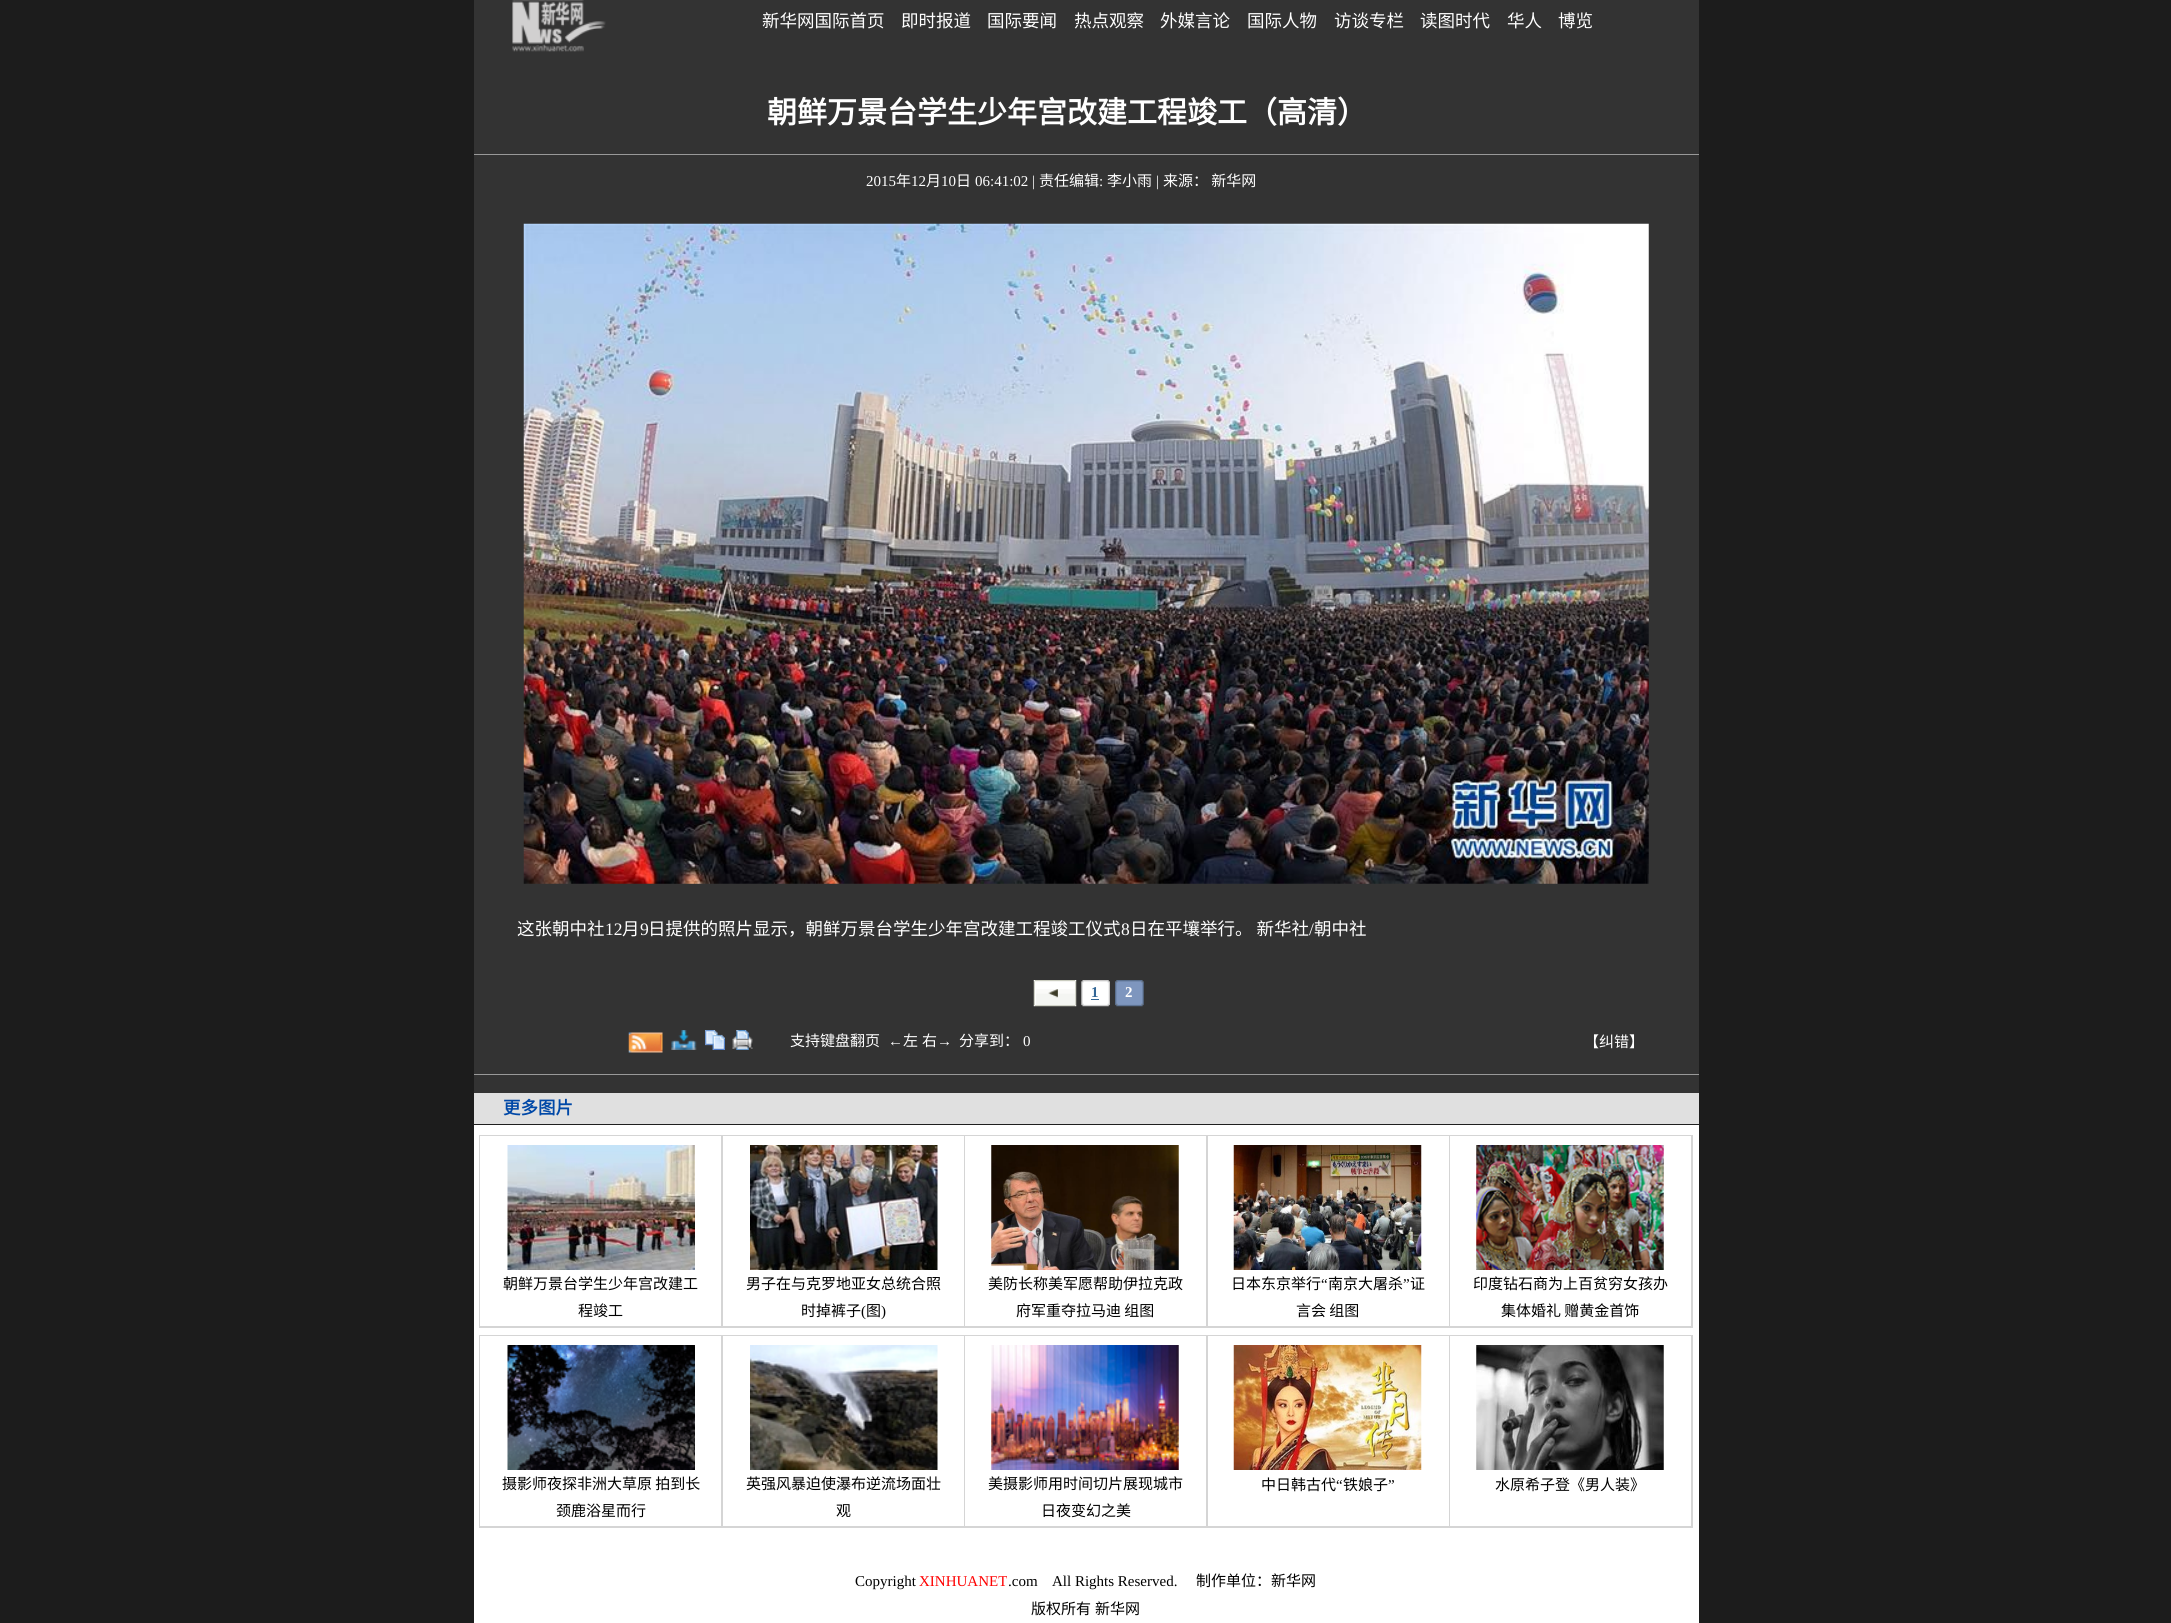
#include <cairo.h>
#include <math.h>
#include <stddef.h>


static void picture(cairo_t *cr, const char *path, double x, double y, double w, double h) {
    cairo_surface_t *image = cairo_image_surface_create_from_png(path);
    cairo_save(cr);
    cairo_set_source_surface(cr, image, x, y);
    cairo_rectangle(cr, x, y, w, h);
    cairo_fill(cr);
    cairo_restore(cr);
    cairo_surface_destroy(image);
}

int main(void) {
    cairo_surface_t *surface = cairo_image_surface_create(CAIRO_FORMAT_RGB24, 2171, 1623);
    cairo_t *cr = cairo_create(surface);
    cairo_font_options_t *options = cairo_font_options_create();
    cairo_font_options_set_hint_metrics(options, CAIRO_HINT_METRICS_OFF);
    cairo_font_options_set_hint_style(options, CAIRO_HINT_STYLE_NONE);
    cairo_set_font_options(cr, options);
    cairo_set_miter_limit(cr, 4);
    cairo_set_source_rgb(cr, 0.11, 0.11, 0.11);
    cairo_paint(cr);
    cairo_set_source_rgb(cr, 0.2, 0.2, 0.2);
    cairo_rectangle(cr, 474, 0, 1225, 1093);
    cairo_fill(cr);
    picture(cr, "img1.png", 512, 0, 94, 52);
    cairo_select_font_face(cr, "Noto Sans CJK SC", CAIRO_FONT_SLANT_NORMAL, CAIRO_FONT_WEIGHT_NORMAL);
    cairo_set_font_size(cr, 17.5);
    cairo_set_source_rgb(cr, 1, 1, 1);
    cairo_move_to(cr, 762, 27);
    cairo_show_text(cr, "新华网国际首页");
    cairo_move_to(cr, 901, 27);
    cairo_show_text(cr, "即时报道");
    cairo_move_to(cr, 987, 27);
    cairo_show_text(cr, "国际要闻");
    cairo_move_to(cr, 1074, 27);
    cairo_show_text(cr, "热点观察");
    cairo_move_to(cr, 1160, 27);
    cairo_show_text(cr, "外媒言论");
    cairo_move_to(cr, 1247, 27);
    cairo_show_text(cr, "国际人物");
    cairo_move_to(cr, 1334, 27);
    cairo_show_text(cr, "访谈专栏");
    cairo_move_to(cr, 1420, 27);
    cairo_show_text(cr, "读图时代");
    cairo_move_to(cr, 1507, 27);
    cairo_show_text(cr, "华人");
    cairo_move_to(cr, 1558, 27);
    cairo_show_text(cr, "博览");
    cairo_select_font_face(cr, "Noto Sans CJK SC", CAIRO_FONT_SLANT_NORMAL, CAIRO_FONT_WEIGHT_BOLD);
    cairo_set_font_size(cr, 30);
    cairo_move_to(cr, 767, 123);
    cairo_show_text(cr, "朝鲜万景台学生少年宫改建工程竣工（高清）");
    cairo_set_source_rgb(cr, 0.6, 0.6, 0.6);
    cairo_rectangle(cr, 474, 154, 1225, 1);
    cairo_fill(cr);
    cairo_select_font_face(cr, "Liberation Serif", CAIRO_FONT_SLANT_NORMAL, CAIRO_FONT_WEIGHT_NORMAL);
    cairo_set_font_size(cr, 15);
    cairo_set_source_rgb(cr, 1, 1, 1);
    cairo_move_to(cr, 866, 186);
    cairo_show_text(cr, "2015");
    cairo_select_font_face(cr, "Noto Sans CJK SC", CAIRO_FONT_SLANT_NORMAL, CAIRO_FONT_WEIGHT_NORMAL);
    cairo_move_to(cr, 896, 186);
    cairo_show_text(cr, "年");
    cairo_select_font_face(cr, "Liberation Serif", CAIRO_FONT_SLANT_NORMAL, CAIRO_FONT_WEIGHT_NORMAL);
    cairo_move_to(cr, 911, 186);
    cairo_show_text(cr, "12");
    cairo_select_font_face(cr, "Noto Sans CJK SC", CAIRO_FONT_SLANT_NORMAL, CAIRO_FONT_WEIGHT_NORMAL);
    cairo_move_to(cr, 926, 186);
    cairo_show_text(cr, "月");
    cairo_select_font_face(cr, "Liberation Serif", CAIRO_FONT_SLANT_NORMAL, CAIRO_FONT_WEIGHT_NORMAL);
    cairo_move_to(cr, 941, 186);
    cairo_show_text(cr, "10");
    cairo_select_font_face(cr, "Noto Sans CJK SC", CAIRO_FONT_SLANT_NORMAL, CAIRO_FONT_WEIGHT_NORMAL);
    cairo_move_to(cr, 956, 186);
    cairo_show_text(cr, "日");
    cairo_select_font_face(cr, "Liberation Serif", CAIRO_FONT_SLANT_NORMAL, CAIRO_FONT_WEIGHT_NORMAL);
    cairo_move_to(cr, 975, 186);
    cairo_show_text(cr, "06:41:02 |");
    cairo_select_font_face(cr, "Noto Sans CJK SC", CAIRO_FONT_SLANT_NORMAL, CAIRO_FONT_WEIGHT_NORMAL);
    cairo_move_to(cr, 1039, 186);
    cairo_show_text(cr, "责任编辑");
    cairo_select_font_face(cr, "Liberation Serif", CAIRO_FONT_SLANT_NORMAL, CAIRO_FONT_WEIGHT_NORMAL);
    cairo_move_to(cr, 1099, 186);
    cairo_show_text(cr, ":");
    cairo_select_font_face(cr, "Noto Sans CJK SC", CAIRO_FONT_SLANT_NORMAL, CAIRO_FONT_WEIGHT_NORMAL);
    cairo_move_to(cr, 1107, 186);
    cairo_show_text(cr, "李小雨");
    cairo_select_font_face(cr, "Liberation Serif", CAIRO_FONT_SLANT_NORMAL, CAIRO_FONT_WEIGHT_NORMAL);
    cairo_move_to(cr, 1156, 186);
    cairo_show_text(cr, "|");
    cairo_select_font_face(cr, "Noto Sans CJK SC", CAIRO_FONT_SLANT_NORMAL, CAIRO_FONT_WEIGHT_NORMAL);
    cairo_move_to(cr, 1163, 186);
    cairo_show_text(cr, "来源： 新华网");
    picture(cr, "img2.png", 523, 223, 1126, 661);
    cairo_set_font_size(cr, 17.5);
    cairo_move_to(cr, 517, 935);
    cairo_show_text(cr, "这张朝中社");
    cairo_select_font_face(cr, "Liberation Serif", CAIRO_FONT_SLANT_NORMAL, CAIRO_FONT_WEIGHT_NORMAL);
    cairo_move_to(cr, 605, 935);
    cairo_show_text(cr, "12");
    cairo_select_font_face(cr, "Noto Sans CJK SC", CAIRO_FONT_SLANT_NORMAL, CAIRO_FONT_WEIGHT_NORMAL);
    cairo_move_to(cr, 622, 935);
    cairo_show_text(cr, "月");
    cairo_select_font_face(cr, "Liberation Serif", CAIRO_FONT_SLANT_NORMAL, CAIRO_FONT_WEIGHT_NORMAL);
    cairo_move_to(cr, 640, 935);
    cairo_show_text(cr, "9");
    cairo_select_font_face(cr, "Noto Sans CJK SC", CAIRO_FONT_SLANT_NORMAL, CAIRO_FONT_WEIGHT_NORMAL);
    cairo_move_to(cr, 648, 935);
    cairo_show_text(cr, "日提供的照片显示，朝鲜万景台学生少年宫改建工程竣工仪式");
    cairo_select_font_face(cr, "Liberation Serif", CAIRO_FONT_SLANT_NORMAL, CAIRO_FONT_WEIGHT_NORMAL);
    cairo_move_to(cr, 1121, 935);
    cairo_show_text(cr, "8");
    cairo_select_font_face(cr, "Noto Sans CJK SC", CAIRO_FONT_SLANT_NORMAL, CAIRO_FONT_WEIGHT_NORMAL);
    cairo_move_to(cr, 1130, 935);
    cairo_show_text(cr, "日在平壤举行。 新华社");
    cairo_select_font_face(cr, "Liberation Serif", CAIRO_FONT_SLANT_NORMAL, CAIRO_FONT_WEIGHT_NORMAL);
    cairo_move_to(cr, 1309, 935);
    cairo_show_text(cr, "/");
    cairo_select_font_face(cr, "Noto Sans CJK SC", CAIRO_FONT_SLANT_NORMAL, CAIRO_FONT_WEIGHT_NORMAL);
    cairo_move_to(cr, 1314, 935);
    cairo_show_text(cr, "朝中社");
    picture(cr, "img3.png", 1033, 980, 44, 27);
    picture(cr, "img4.png", 1081, 980, 29, 27);
    cairo_select_font_face(cr, "Liberation Serif", CAIRO_FONT_SLANT_NORMAL, CAIRO_FONT_WEIGHT_BOLD);
    cairo_set_font_size(cr, 15);
    cairo_set_source_rgb(cr, 0.2, 0.4, 0.588);
    cairo_move_to(cr, 1091, 997);
    cairo_show_text(cr, "1");
    cairo_rectangle(cr, 1091, 999, 8, 1);
    cairo_fill(cr);
    picture(cr, "img5.png", 1115, 980, 29, 27);
    cairo_set_source_rgb(cr, 1, 1, 1);
    cairo_move_to(cr, 1125, 997);
    cairo_show_text(cr, "2");
    picture(cr, "img6.png", 628, 1032, 35, 21);
    picture(cr, "img7.png", 671, 1030, 26, 20);
    picture(cr, "img8.png", 705, 1030, 20, 20);
    picture(cr, "img9.png", 732, 1030, 21, 20);
    cairo_select_font_face(cr, "Noto Sans CJK SC", CAIRO_FONT_SLANT_NORMAL, CAIRO_FONT_WEIGHT_NORMAL);
    cairo_move_to(cr, 790, 1046);
    cairo_show_text(cr, "支持键盘翻页");
    cairo_select_font_face(cr, "Liberation Serif", CAIRO_FONT_SLANT_NORMAL, CAIRO_FONT_WEIGHT_NORMAL);
    cairo_move_to(cr, 888, 1046);
    cairo_show_text(cr, "←");
    cairo_select_font_face(cr, "Noto Sans CJK SC", CAIRO_FONT_SLANT_NORMAL, CAIRO_FONT_WEIGHT_NORMAL);
    cairo_move_to(cr, 903, 1046);
    cairo_show_text(cr, "左");
    cairo_move_to(cr, 922, 1046);
    cairo_show_text(cr, "右");
    cairo_select_font_face(cr, "Liberation Serif", CAIRO_FONT_SLANT_NORMAL, CAIRO_FONT_WEIGHT_NORMAL);
    cairo_move_to(cr, 937, 1046);
    cairo_show_text(cr, "→");
    cairo_select_font_face(cr, "Noto Sans CJK SC", CAIRO_FONT_SLANT_NORMAL, CAIRO_FONT_WEIGHT_NORMAL);
    cairo_move_to(cr, 959, 1046);
    cairo_show_text(cr, "分享到：");
    cairo_select_font_face(cr, "Liberation Serif", CAIRO_FONT_SLANT_NORMAL, CAIRO_FONT_WEIGHT_NORMAL);
    cairo_move_to(cr, 1023, 1046);
    cairo_show_text(cr, "0");
    cairo_select_font_face(cr, "Noto Sans CJK SC", CAIRO_FONT_SLANT_NORMAL, CAIRO_FONT_WEIGHT_NORMAL);
    cairo_move_to(cr, 1584, 1047);
    cairo_show_text(cr, "【纠错】");
    cairo_set_source_rgb(cr, 0.6, 0.6, 0.6);
    cairo_rectangle(cr, 474, 1074, 1225, 1);
    cairo_fill(cr);
    cairo_set_source_rgb(cr, 1, 1, 1);
    cairo_rectangle(cr, 474, 1125, 1225, 498);
    cairo_fill(cr);
    cairo_set_source_rgb(cr, 0.878, 0.878, 0.878);
    cairo_rectangle(cr, 474, 1093, 1225, 31);
    cairo_fill(cr);
    cairo_select_font_face(cr, "Noto Sans CJK SC", CAIRO_FONT_SLANT_NORMAL, CAIRO_FONT_WEIGHT_BOLD);
    cairo_set_font_size(cr, 17.5);
    cairo_set_source_rgb(cr, 0, 0.282, 0.655);
    cairo_move_to(cr, 503, 1114);
    cairo_show_text(cr, "更多图片");
    cairo_set_source_rgb(cr, 0.122, 0.122, 0.122);
    cairo_rectangle(cr, 474, 1124, 1225, 1);
    cairo_fill(cr);
    cairo_set_source_rgb(cr, 0.835, 0.835, 0.835);
    cairo_rectangle(cr, 479, 1135, 1214, 193);
    cairo_fill(cr);
    cairo_set_source_rgb(cr, 1, 1, 1);
    cairo_rectangle(cr, 480, 1136, 241, 190);
    cairo_fill(cr);
    picture(cr, "img10.png", 507, 1145, 188, 125);
    cairo_select_font_face(cr, "Noto Sans CJK SC", CAIRO_FONT_SLANT_NORMAL, CAIRO_FONT_WEIGHT_NORMAL);
    cairo_set_font_size(cr, 15);
    cairo_set_source_rgb(cr, 0, 0, 0);
    cairo_move_to(cr, 503, 1289);
    cairo_show_text(cr, "朝鲜万景台学生少年宫改建工");
    cairo_move_to(cr, 578, 1316);
    cairo_show_text(cr, "程竣工");
    cairo_set_source_rgb(cr, 1, 1, 1);
    cairo_rectangle(cr, 723, 1136, 241, 190);
    cairo_fill(cr);
    picture(cr, "img11.png", 750, 1145, 188, 125);
    cairo_set_source_rgb(cr, 0, 0, 0);
    cairo_move_to(cr, 746, 1289);
    cairo_show_text(cr, "男子在与克罗地亚女总统合照");
    cairo_move_to(cr, 801, 1316);
    cairo_show_text(cr, "时掉裤子");
    cairo_select_font_face(cr, "Liberation Serif", CAIRO_FONT_SLANT_NORMAL, CAIRO_FONT_WEIGHT_NORMAL);
    cairo_move_to(cr, 861, 1316);
    cairo_show_text(cr, "(");
    cairo_select_font_face(cr, "Noto Sans CJK SC", CAIRO_FONT_SLANT_NORMAL, CAIRO_FONT_WEIGHT_NORMAL);
    cairo_move_to(cr, 866, 1316);
    cairo_show_text(cr, "图");
    cairo_select_font_face(cr, "Liberation Serif", CAIRO_FONT_SLANT_NORMAL, CAIRO_FONT_WEIGHT_NORMAL);
    cairo_move_to(cr, 881, 1316);
    cairo_show_text(cr, ")");
    cairo_set_source_rgb(cr, 1, 1, 1);
    cairo_rectangle(cr, 965, 1136, 241, 190);
    cairo_fill(cr);
    picture(cr, "img12.png", 991, 1145, 188, 125);
    cairo_select_font_face(cr, "Noto Sans CJK SC", CAIRO_FONT_SLANT_NORMAL, CAIRO_FONT_WEIGHT_NORMAL);
    cairo_set_source_rgb(cr, 0, 0, 0);
    cairo_move_to(cr, 988, 1289);
    cairo_show_text(cr, "美防长称美军愿帮助伊拉克政");
    cairo_move_to(cr, 1016, 1316);
    cairo_show_text(cr, "府军重夺拉马迪 组图");
    cairo_set_source_rgb(cr, 1, 1, 1);
    cairo_rectangle(cr, 1208, 1136, 241, 190);
    cairo_fill(cr);
    picture(cr, "img13.png", 1233, 1145, 189, 125);
    cairo_set_source_rgb(cr, 0, 0, 0);
    cairo_move_to(cr, 1231, 1289);
    cairo_show_text(cr, "日本东京举行");
    cairo_select_font_face(cr, "Liberation Serif", CAIRO_FONT_SLANT_NORMAL, CAIRO_FONT_WEIGHT_NORMAL);
    cairo_move_to(cr, 1321, 1289);
    cairo_show_text(cr, "“");
    cairo_select_font_face(cr, "Noto Sans CJK SC", CAIRO_FONT_SLANT_NORMAL, CAIRO_FONT_WEIGHT_NORMAL);
    cairo_move_to(cr, 1328, 1289);
    cairo_show_text(cr, "南京大屠杀");
    cairo_select_font_face(cr, "Liberation Serif", CAIRO_FONT_SLANT_NORMAL, CAIRO_FONT_WEIGHT_NORMAL);
    cairo_move_to(cr, 1403, 1289);
    cairo_show_text(cr, "”");
    cairo_select_font_face(cr, "Noto Sans CJK SC", CAIRO_FONT_SLANT_NORMAL, CAIRO_FONT_WEIGHT_NORMAL);
    cairo_move_to(cr, 1410, 1289);
    cairo_show_text(cr, "证");
    cairo_move_to(cr, 1296, 1316);
    cairo_show_text(cr, "言会 组图");
    cairo_set_source_rgb(cr, 1, 1, 1);
    cairo_rectangle(cr, 1450, 1136, 241, 190);
    cairo_fill(cr);
    picture(cr, "img14.png", 1476, 1145, 188, 125);
    cairo_set_source_rgb(cr, 0, 0, 0);
    cairo_move_to(cr, 1473, 1289);
    cairo_show_text(cr, "印度钻石商为上百贫穷女孩办");
    cairo_move_to(cr, 1501, 1316);
    cairo_show_text(cr, "集体婚礼 赠黄金首饰");
    cairo_set_source_rgb(cr, 0.835, 0.835, 0.835);
    cairo_rectangle(cr, 479, 1335, 1214, 193);
    cairo_fill(cr);
    cairo_set_source_rgb(cr, 1, 1, 1);
    cairo_rectangle(cr, 480, 1336, 241, 190);
    cairo_fill(cr);
    picture(cr, "img15.png", 507, 1345, 188, 125);
    cairo_set_source_rgb(cr, 0, 0, 0);
    cairo_move_to(cr, 502, 1489);
    cairo_show_text(cr, "摄影师夜探非洲大草原 拍到长");
    cairo_move_to(cr, 556, 1516);
    cairo_show_text(cr, "颈鹿浴星而行");
    cairo_set_source_rgb(cr, 1, 1, 1);
    cairo_rectangle(cr, 723, 1336, 241, 190);
    cairo_fill(cr);
    picture(cr, "img16.png", 750, 1345, 188, 125);
    cairo_set_source_rgb(cr, 0, 0, 0);
    cairo_move_to(cr, 746, 1489);
    cairo_show_text(cr, "英强风暴迫使瀑布逆流场面壮");
    cairo_move_to(cr, 836, 1516);
    cairo_show_text(cr, "观");
    cairo_set_source_rgb(cr, 1, 1, 1);
    cairo_rectangle(cr, 965, 1336, 241, 190);
    cairo_fill(cr);
    picture(cr, "img17.png", 991, 1345, 188, 125);
    cairo_set_source_rgb(cr, 0, 0, 0);
    cairo_move_to(cr, 988, 1489);
    cairo_show_text(cr, "美摄影师用时间切片展现城市");
    cairo_move_to(cr, 1041, 1516);
    cairo_show_text(cr, "日夜变幻之美");
    cairo_set_source_rgb(cr, 1, 1, 1);
    cairo_rectangle(cr, 1208, 1336, 241, 190);
    cairo_fill(cr);
    picture(cr, "img18.png", 1233, 1345, 189, 125);
    cairo_set_source_rgb(cr, 0, 0, 0);
    cairo_move_to(cr, 1261, 1490);
    cairo_show_text(cr, "中日韩古代");
    cairo_select_font_face(cr, "Liberation Serif", CAIRO_FONT_SLANT_NORMAL, CAIRO_FONT_WEIGHT_NORMAL);
    cairo_move_to(cr, 1336, 1490);
    cairo_show_text(cr, "“");
    cairo_select_font_face(cr, "Noto Sans CJK SC", CAIRO_FONT_SLANT_NORMAL, CAIRO_FONT_WEIGHT_NORMAL);
    cairo_move_to(cr, 1343, 1490);
    cairo_show_text(cr, "铁娘子");
    cairo_select_font_face(cr, "Liberation Serif", CAIRO_FONT_SLANT_NORMAL, CAIRO_FONT_WEIGHT_NORMAL);
    cairo_move_to(cr, 1388, 1490);
    cairo_show_text(cr, "”");
    cairo_set_source_rgb(cr, 1, 1, 1);
    cairo_rectangle(cr, 1450, 1336, 241, 190);
    cairo_fill(cr);
    picture(cr, "img19.png", 1476, 1345, 188, 125);
    cairo_select_font_face(cr, "Noto Sans CJK SC", CAIRO_FONT_SLANT_NORMAL, CAIRO_FONT_WEIGHT_NORMAL);
    cairo_set_source_rgb(cr, 0, 0, 0);
    cairo_move_to(cr, 1495, 1490);
    cairo_show_text(cr, "水原希子登《男人装》");
    cairo_select_font_face(cr, "Liberation Serif", CAIRO_FONT_SLANT_NORMAL, CAIRO_FONT_WEIGHT_NORMAL);
    cairo_move_to(cr, 855, 1586);
    cairo_show_text(cr, "Copyright");
    cairo_set_source_rgb(cr, 1, 0, 0);
    cairo_move_to(cr, 919, 1586);
    cairo_show_text(cr, "XINHUANET");
    cairo_set_source_rgb(cr, 0, 0, 0);
    cairo_move_to(cr, 1008, 1586);
    cairo_show_text(cr, ".com");
    cairo_move_to(cr, 1052, 1586);
    cairo_show_text(cr, "All Rights Reserved.");
    cairo_select_font_face(cr, "Noto Sans CJK SC", CAIRO_FONT_SLANT_NORMAL, CAIRO_FONT_WEIGHT_NORMAL);
    cairo_move_to(cr, 1196, 1586);
    cairo_show_text(cr, "制作单位：新华网");
    cairo_move_to(cr, 1031, 1614);
    cairo_show_text(cr, "版权所有");
    cairo_move_to(cr, 1095, 1614);
    cairo_show_text(cr, "新华网");
    cairo_surface_write_to_png(surface, "page.png");
    cairo_font_options_destroy(options);
    cairo_destroy(cr);
    cairo_surface_destroy(surface);
    return 0;
}
